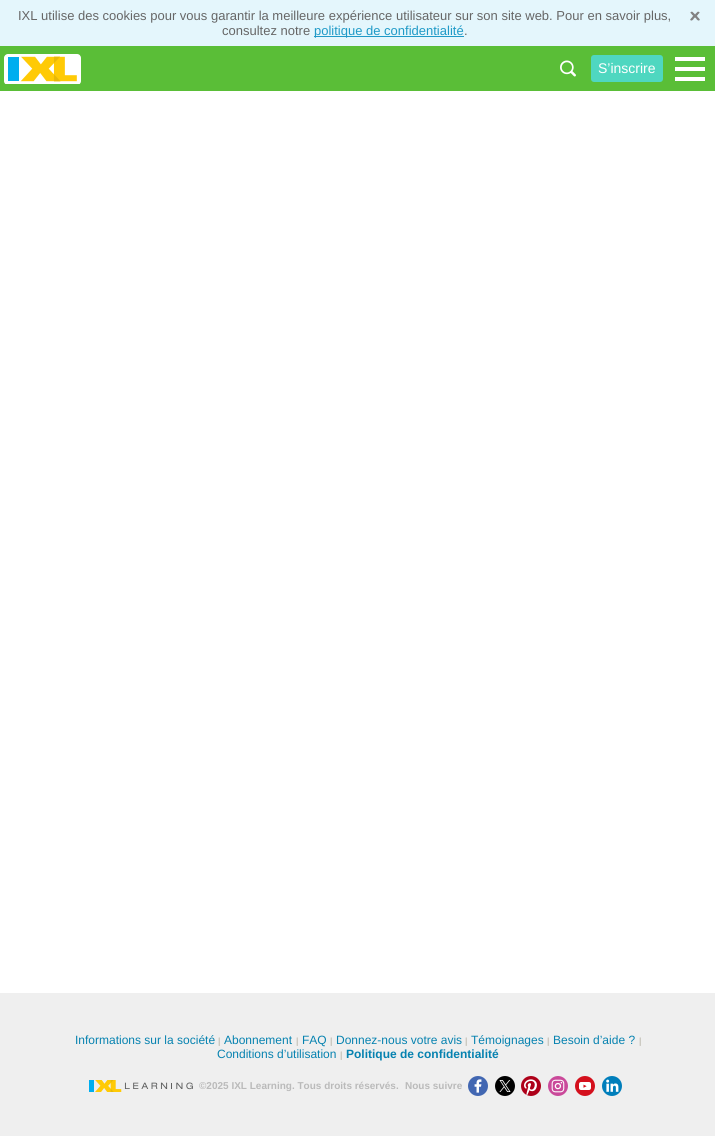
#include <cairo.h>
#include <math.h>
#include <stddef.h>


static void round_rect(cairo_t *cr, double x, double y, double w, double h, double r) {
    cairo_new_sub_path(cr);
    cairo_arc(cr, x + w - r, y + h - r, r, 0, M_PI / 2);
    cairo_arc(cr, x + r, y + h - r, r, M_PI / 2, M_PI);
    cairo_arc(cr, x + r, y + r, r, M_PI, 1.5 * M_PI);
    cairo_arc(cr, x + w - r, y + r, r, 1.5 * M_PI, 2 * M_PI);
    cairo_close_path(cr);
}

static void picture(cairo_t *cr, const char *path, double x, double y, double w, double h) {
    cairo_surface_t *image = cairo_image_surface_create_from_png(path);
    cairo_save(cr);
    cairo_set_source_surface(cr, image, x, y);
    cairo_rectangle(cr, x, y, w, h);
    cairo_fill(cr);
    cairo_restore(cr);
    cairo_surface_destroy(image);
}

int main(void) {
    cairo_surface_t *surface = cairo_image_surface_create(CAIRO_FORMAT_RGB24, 715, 1136);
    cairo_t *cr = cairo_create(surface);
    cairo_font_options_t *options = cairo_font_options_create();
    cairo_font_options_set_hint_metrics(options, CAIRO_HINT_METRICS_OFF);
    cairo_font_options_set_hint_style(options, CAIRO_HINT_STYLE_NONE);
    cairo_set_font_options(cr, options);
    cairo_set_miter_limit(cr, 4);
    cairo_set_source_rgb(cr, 1, 1, 1);
    cairo_paint(cr);
    cairo_set_source_rgb(cr, 0.894, 0.961, 0.988);
    cairo_rectangle(cr, 0, 0, 715, 46);
    cairo_fill(cr);
    cairo_select_font_face(cr, "Liberation Sans", CAIRO_FONT_SLANT_NORMAL, CAIRO_FONT_WEIGHT_NORMAL);
    cairo_set_font_size(cr, 13);
    cairo_set_source_rgb(cr, 0.4, 0.4, 0.4);
    cairo_move_to(cr, 18, 20);
    cairo_show_text(cr, "IXL utilise des cookies pour vous garantir la meilleure expérience utilisateur sur son site web. Pour en savoir plus,");
    cairo_move_to(cr, 222, 35);
    cairo_show_text(cr, "consultez notre");
    cairo_set_source_rgb(cr, 0.122, 0.604, 0.78);
    cairo_rectangle(cr, 314, 36, 150, 1);
    cairo_fill(cr);
    cairo_move_to(cr, 314, 35);
    cairo_show_text(cr, "politique de confidentialité");
    cairo_set_source_rgb(cr, 0.4, 0.4, 0.4);
    cairo_move_to(cr, 464, 35);
    cairo_show_text(cr, ".");
    picture(cr, "img1.png", 690, 11, 10, 10);
    cairo_set_source_rgb(cr, 0.353, 0.745, 0.216);
    cairo_rectangle(cr, 0, 46, 715, 45);
    cairo_fill(cr);
    picture(cr, "img2.png", 4, 54, 77, 30);
    picture(cr, "img3.png", 560, 60, 16, 17);
    cairo_set_source_rgb(cr, 0.31, 0.843, 0.753);
    round_rect(cr, 591, 55, 72, 27, 3);
    cairo_fill(cr);
    cairo_set_font_size(cr, 14);
    cairo_set_source_rgb(cr, 1, 1, 1);
    cairo_move_to(cr, 598, 73);
    cairo_show_text(cr, "S’inscrire");
    cairo_rectangle(cr, 675, 77, 30, 4);
    cairo_fill(cr);
    cairo_rectangle(cr, 675, 67, 30, 4);
    cairo_fill(cr);
    cairo_rectangle(cr, 675, 57, 30, 4);
    cairo_fill(cr);
    cairo_set_source_rgb(cr, 0.937, 0.937, 0.937);
    cairo_rectangle(cr, 0, 993, 715, 143);
    cairo_fill(cr);
    cairo_set_font_size(cr, 12);
    cairo_set_source_rgb(cr, 0.027, 0.51, 0.69);
    cairo_move_to(cr, 75, 1044);
    cairo_show_text(cr, "Informations sur la société");
    cairo_set_font_size(cr, 9);
    cairo_set_source_rgb(cr, 0.675, 0.659, 0.6);
    cairo_move_to(cr, 218, 1044);
    cairo_show_text(cr, "|");
    cairo_set_font_size(cr, 12);
    cairo_set_source_rgb(cr, 0.027, 0.51, 0.69);
    cairo_move_to(cr, 224, 1044);
    cairo_show_text(cr, "Abonnement");
    cairo_set_font_size(cr, 9);
    cairo_set_source_rgb(cr, 0.675, 0.659, 0.6);
    cairo_move_to(cr, 296, 1044);
    cairo_show_text(cr, "|");
    cairo_set_font_size(cr, 12);
    cairo_set_source_rgb(cr, 0.027, 0.51, 0.69);
    cairo_move_to(cr, 302, 1044);
    cairo_show_text(cr, "FAQ");
    cairo_set_font_size(cr, 9);
    cairo_set_source_rgb(cr, 0.675, 0.659, 0.6);
    cairo_move_to(cr, 330, 1044);
    cairo_show_text(cr, "|");
    cairo_set_font_size(cr, 12);
    cairo_set_source_rgb(cr, 0.027, 0.51, 0.69);
    cairo_move_to(cr, 336, 1044);
    cairo_show_text(cr, "Donnez-nous votre avis");
    cairo_set_font_size(cr, 9);
    cairo_set_source_rgb(cr, 0.675, 0.659, 0.6);
    cairo_move_to(cr, 465, 1044);
    cairo_show_text(cr, "|");
    cairo_set_font_size(cr, 12);
    cairo_set_source_rgb(cr, 0.027, 0.51, 0.69);
    cairo_move_to(cr, 471, 1044);
    cairo_show_text(cr, "Témoignages");
    cairo_set_font_size(cr, 9);
    cairo_set_source_rgb(cr, 0.675, 0.659, 0.6);
    cairo_move_to(cr, 547, 1044);
    cairo_show_text(cr, "|");
    cairo_set_font_size(cr, 12);
    cairo_set_source_rgb(cr, 0.027, 0.51, 0.69);
    cairo_move_to(cr, 553, 1044);
    cairo_show_text(cr, "Besoin d’aide ?");
    cairo_set_font_size(cr, 9);
    cairo_set_source_rgb(cr, 0.675, 0.659, 0.6);
    cairo_move_to(cr, 639, 1044);
    cairo_show_text(cr, "|");
    cairo_set_font_size(cr, 12);
    cairo_set_source_rgb(cr, 0.027, 0.51, 0.69);
    cairo_move_to(cr, 217, 1058);
    cairo_show_text(cr, "Conditions d’utilisation");
    cairo_set_font_size(cr, 9);
    cairo_set_source_rgb(cr, 0.675, 0.659, 0.6);
    cairo_move_to(cr, 340, 1058);
    cairo_show_text(cr, "|");
    cairo_select_font_face(cr, "Liberation Sans", CAIRO_FONT_SLANT_NORMAL, CAIRO_FONT_WEIGHT_BOLD);
    cairo_set_font_size(cr, 12);
    cairo_set_source_rgb(cr, 0.027, 0.51, 0.69);
    cairo_move_to(cr, 346, 1058);
    cairo_show_text(cr, "Politique de confidentialité");
    picture(cr, "img4.png", 89, 1080, 104, 12);
    cairo_set_font_size(cr, 10);
    cairo_set_source_rgb(cr, 0.729, 0.729, 0.729);
    cairo_move_to(cr, 199, 1089);
    cairo_show_text(cr, "©2025 IXL Learning. Tous droits réservés.");
    cairo_move_to(cr, 405, 1089);
    cairo_show_text(cr, "Nous suivre");
    picture(cr, "img5.png", 468, 1076, 20, 20);
    picture(cr, "img6.png", 495, 1076, 20, 20);
    picture(cr, "img7.png", 521, 1076, 20, 20);
    picture(cr, "img8.png", 548, 1076, 20, 20);
    picture(cr, "img9.png", 575, 1076, 20, 20);
    picture(cr, "img10.png", 602, 1076, 20, 20);
    cairo_surface_write_to_png(surface, "page.png");
    cairo_font_options_destroy(options);
    cairo_destroy(cr);
    cairo_surface_destroy(surface);
    return 0;
}
